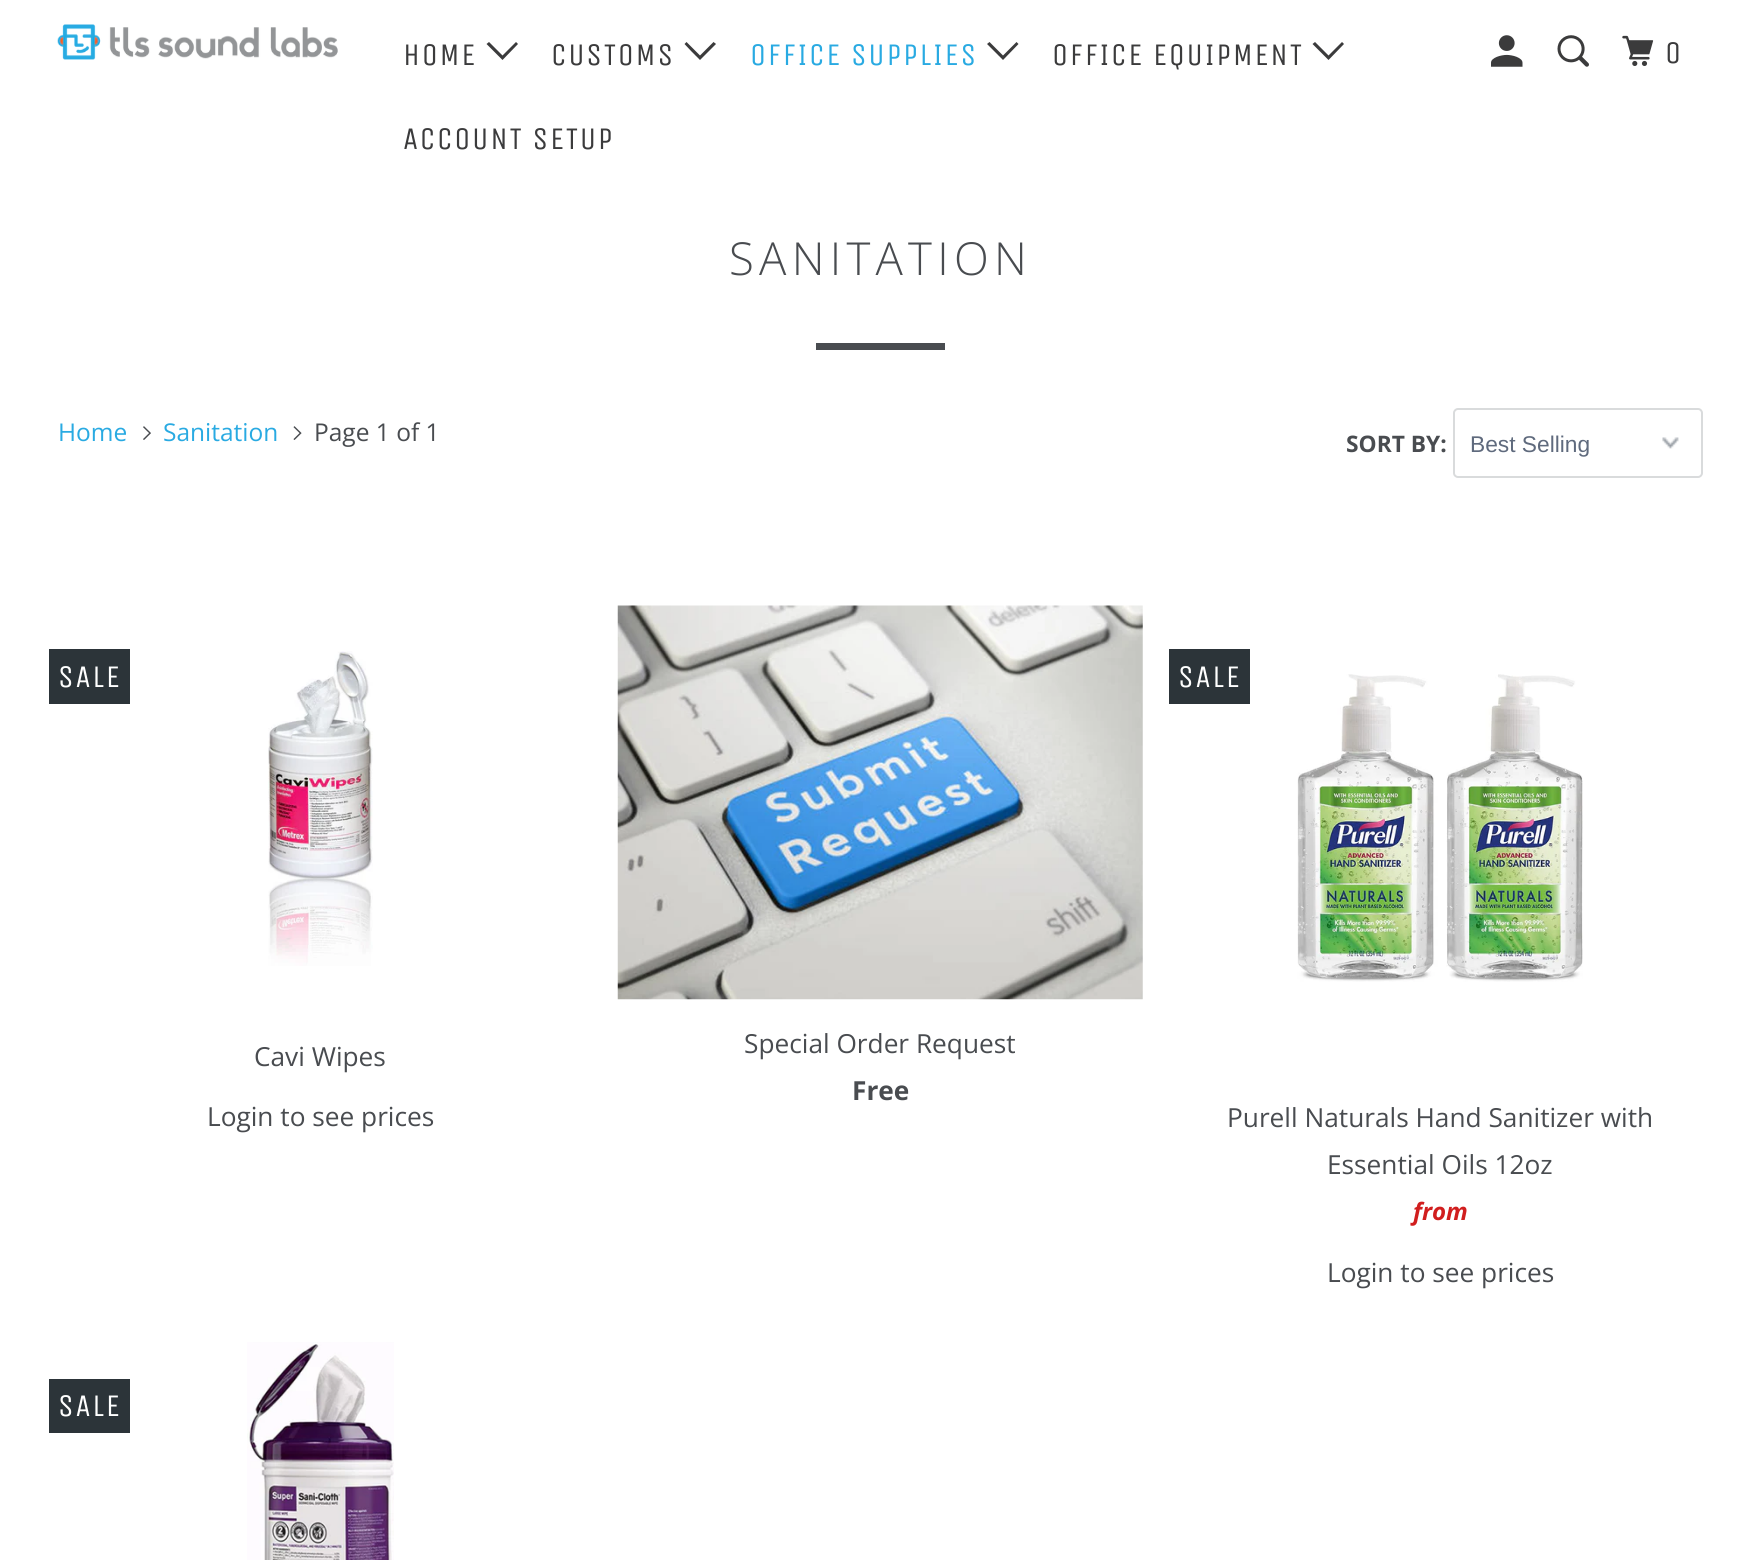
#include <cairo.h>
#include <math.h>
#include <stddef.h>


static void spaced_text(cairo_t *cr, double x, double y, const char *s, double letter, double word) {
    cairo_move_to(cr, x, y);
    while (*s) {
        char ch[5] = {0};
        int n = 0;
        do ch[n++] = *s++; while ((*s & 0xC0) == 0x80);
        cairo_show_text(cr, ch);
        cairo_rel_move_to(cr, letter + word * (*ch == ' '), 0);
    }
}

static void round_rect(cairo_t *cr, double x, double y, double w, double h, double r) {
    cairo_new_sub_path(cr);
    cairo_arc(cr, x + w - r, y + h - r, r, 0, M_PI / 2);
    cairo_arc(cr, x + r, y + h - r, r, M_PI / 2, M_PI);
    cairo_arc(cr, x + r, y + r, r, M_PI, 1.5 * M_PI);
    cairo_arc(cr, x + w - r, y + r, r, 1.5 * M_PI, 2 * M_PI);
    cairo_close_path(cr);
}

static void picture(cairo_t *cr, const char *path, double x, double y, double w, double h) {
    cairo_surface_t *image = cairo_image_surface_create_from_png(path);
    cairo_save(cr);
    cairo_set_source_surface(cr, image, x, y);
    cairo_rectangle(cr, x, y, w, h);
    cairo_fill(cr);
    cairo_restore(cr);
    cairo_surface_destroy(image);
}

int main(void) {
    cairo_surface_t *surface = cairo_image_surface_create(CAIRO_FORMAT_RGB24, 1759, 1560);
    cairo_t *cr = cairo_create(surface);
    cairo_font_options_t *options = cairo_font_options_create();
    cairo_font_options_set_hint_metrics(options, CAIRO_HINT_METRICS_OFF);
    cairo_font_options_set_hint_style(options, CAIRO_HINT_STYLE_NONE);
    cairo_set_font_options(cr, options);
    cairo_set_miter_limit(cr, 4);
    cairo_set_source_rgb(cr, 1, 1, 1);
    cairo_paint(cr);
    picture(cr, "img1.png", 57, 24, 281, 36);
    cairo_select_font_face(cr, "Unica One", CAIRO_FONT_SLANT_NORMAL, CAIRO_FONT_WEIGHT_NORMAL);
    cairo_set_font_size(cr, 31.5);
    cairo_set_source_rgb(cr, 0.231, 0.231, 0.235);
    spaced_text(cr, 403, 65, "HOME", 1.75, 0);
    cairo_new_path(cr);
    cairo_move_to(cr, 494.5, 52);
    cairo_line_to(cr, 486.5, 44);
    cairo_line_to(cr, 489, 42);
    cairo_line_to(cr, 502.5, 55.5);
    cairo_line_to(cr, 516, 42);
    cairo_line_to(cr, 518, 44);
    cairo_line_to(cr, 502.5, 60);
    cairo_close_path(cr);
    cairo_fill(cr);
    spaced_text(cr, 551, 65, "CUSTOMS", 1.75, 0);
    cairo_new_path(cr);
    cairo_move_to(cr, 692, 52);
    cairo_line_to(cr, 684.5, 44);
    cairo_line_to(cr, 686.5, 42);
    cairo_line_to(cr, 700, 55.5);
    cairo_line_to(cr, 713.5, 42);
    cairo_line_to(cr, 716, 44);
    cairo_line_to(cr, 700, 60);
    cairo_close_path(cr);
    cairo_fill(cr);
    cairo_set_source_rgb(cr, 0.161, 0.667, 0.886);
    spaced_text(cr, 750, 65, "OFFICE SUPPLIES", 1.75, 0);
    cairo_set_source_rgb(cr, 0.231, 0.231, 0.235);
    cairo_new_path(cr);
    cairo_move_to(cr, 995, 52);
    cairo_line_to(cr, 987, 44);
    cairo_line_to(cr, 989.5, 42);
    cairo_line_to(cr, 1003, 55.5);
    cairo_line_to(cr, 1016.5, 42);
    cairo_line_to(cr, 1018.5, 44);
    cairo_line_to(cr, 1003, 60);
    cairo_close_path(cr);
    cairo_fill(cr);
    spaced_text(cr, 1052, 65, "OFFICE EQUIPMENT", 1.75, 0);
    cairo_new_path(cr);
    cairo_move_to(cr, 1320.5, 52);
    cairo_line_to(cr, 1312.5, 44);
    cairo_line_to(cr, 1315, 42);
    cairo_line_to(cr, 1328.5, 55.5);
    cairo_line_to(cr, 1342, 42);
    cairo_line_to(cr, 1344, 44);
    cairo_line_to(cr, 1328.5, 60);
    cairo_close_path(cr);
    cairo_fill(cr);
    spaced_text(cr, 403, 149, "ACCOUNT SETUP", 1.75, 0);
    picture(cr, "img2.png", 1491, 35, 32, 32);
    picture(cr, "img3.png", 1557, 35, 32, 32);
    picture(cr, "img4.png", 1622, 35, 32, 31);
    spaced_text(cr, 1665, 63, "0", 1.75, 0);
    cairo_select_font_face(cr, "Open Sans Light", CAIRO_FONT_SLANT_NORMAL, CAIRO_FONT_WEIGHT_NORMAL);
    cairo_set_font_size(cr, 45.5);
    cairo_set_source_rgb(cr, 0.286, 0.298, 0.314);
    spaced_text(cr, 729, 275, "SANITATION", 5.25, 0);
    cairo_rectangle(cr, 816, 343, 129, 7);
    cairo_fill(cr);
    cairo_select_font_face(cr, "Open Sans", CAIRO_FONT_SLANT_NORMAL, CAIRO_FONT_WEIGHT_NORMAL);
    cairo_set_font_size(cr, 24.5);
    cairo_set_source_rgb(cr, 0.161, 0.667, 0.886);
    cairo_move_to(cr, 58, 441);
    cairo_show_text(cr, "Home");
    picture(cr, "img5.png", 143, 426, 8, 14);
    cairo_move_to(cr, 163, 441);
    cairo_show_text(cr, "Sanitation");
    picture(cr, "img6.png", 293, 426, 9, 14);
    cairo_set_source_rgb(cr, 0.286, 0.298, 0.314);
    cairo_move_to(cr, 314, 441);
    cairo_show_text(cr, "Page 1 of 1");
    cairo_select_font_face(cr, "Open Sans", CAIRO_FONT_SLANT_NORMAL, CAIRO_FONT_WEIGHT_BOLD);
    cairo_set_font_size(cr, 22.75);
    cairo_move_to(cr, 1346, 452);
    cairo_show_text(cr, "SORT BY:");
    picture(cr, "img7.png", 1662, 437, 17, 12);
    round_rect(cr, 1454, 409, 248, 68, 4);
    cairo_set_source_rgb(cr, 0.851, 0.859, 0.863);
    cairo_stroke(cr);
    cairo_select_font_face(cr, "Liberation Sans", CAIRO_FONT_SLANT_NORMAL, CAIRO_FONT_WEIGHT_NORMAL);
    cairo_set_source_rgb(cr, 0.373, 0.416, 0.49);
    cairo_move_to(cr, 1470, 452);
    cairo_show_text(cr, "Best Selling");
    cairo_set_source_rgb(cr, 0.173, 0.204, 0.224);
    cairo_rectangle(cr, 49, 649, 81, 55);
    cairo_fill(cr);
    cairo_select_font_face(cr, "Unica One", CAIRO_FONT_SLANT_NORMAL, CAIRO_FONT_WEIGHT_NORMAL);
    cairo_set_font_size(cr, 31.5);
    cairo_set_source_rgb(cr, 1, 1, 1);
    spaced_text(cr, 58, 687, "SALE", 1.75, 0);
    picture(cr, "img8.png", 268, 651, 105, 315);
    cairo_select_font_face(cr, "Open Sans", CAIRO_FONT_SLANT_NORMAL, CAIRO_FONT_WEIGHT_NORMAL);
    cairo_set_font_size(cr, 26.25);
    cairo_set_source_rgb(cr, 0.286, 0.298, 0.314);
    cairo_move_to(cr, 254, 1066);
    cairo_show_text(cr, "Cavi Wipes");
    cairo_move_to(cr, 207, 1126);
    cairo_show_text(cr, "Login to see prices");
    picture(cr, "img9.png", 617, 605, 526, 395);
    cairo_move_to(cr, 744, 1053);
    cairo_show_text(cr, "Special Order Request");
    cairo_select_font_face(cr, "Open Sans", CAIRO_FONT_SLANT_NORMAL, CAIRO_FONT_WEIGHT_BOLD);
    cairo_move_to(cr, 852, 1100);
    cairo_show_text(cr, "Free");
    cairo_set_source_rgb(cr, 0.173, 0.204, 0.224);
    cairo_rectangle(cr, 1169, 649, 81, 55);
    cairo_fill(cr);
    cairo_select_font_face(cr, "Unica One", CAIRO_FONT_SLANT_NORMAL, CAIRO_FONT_WEIGHT_NORMAL);
    cairo_set_font_size(cr, 31.5);
    cairo_set_source_rgb(cr, 1, 1, 1);
    spaced_text(cr, 1178, 687, "SALE", 1.75, 0);
    picture(cr, "img10.png", 1297, 674, 286, 308);
    cairo_select_font_face(cr, "Open Sans", CAIRO_FONT_SLANT_NORMAL, CAIRO_FONT_WEIGHT_NORMAL);
    cairo_set_font_size(cr, 26.25);
    cairo_set_source_rgb(cr, 0.286, 0.298, 0.314);
    cairo_move_to(cr, 1227, 1127);
    cairo_show_text(cr, "Purell Naturals Hand Sanitizer with");
    cairo_move_to(cr, 1327, 1174);
    cairo_show_text(cr, "Essential Oils 12oz");
    cairo_select_font_face(cr, "Open Sans", CAIRO_FONT_SLANT_ITALIC, CAIRO_FONT_WEIGHT_BOLD);
    cairo_set_font_size(cr, 24);
    cairo_set_source_rgb(cr, 0.82, 0.118, 0.118);
    cairo_move_to(cr, 1413, 1220);
    cairo_show_text(cr, "from");
    cairo_select_font_face(cr, "Open Sans", CAIRO_FONT_SLANT_NORMAL, CAIRO_FONT_WEIGHT_NORMAL);
    cairo_set_font_size(cr, 26.25);
    cairo_set_source_rgb(cr, 0.286, 0.298, 0.314);
    cairo_move_to(cr, 1327, 1282);
    cairo_show_text(cr, "Login to see prices");
    cairo_set_source_rgb(cr, 0.173, 0.204, 0.224);
    cairo_rectangle(cr, 49, 1379, 81, 54);
    cairo_fill(cr);
    cairo_select_font_face(cr, "Unica One", CAIRO_FONT_SLANT_NORMAL, CAIRO_FONT_WEIGHT_NORMAL);
    cairo_set_font_size(cr, 31.5);
    cairo_set_source_rgb(cr, 1, 1, 1);
    spaced_text(cr, 58, 1416, "SALE", 1.75, 0);
    picture(cr, "img11.png", 247, 1342, 147, 218);
    cairo_surface_write_to_png(surface, "page.png");
    cairo_font_options_destroy(options);
    cairo_destroy(cr);
    cairo_surface_destroy(surface);
    return 0;
}
